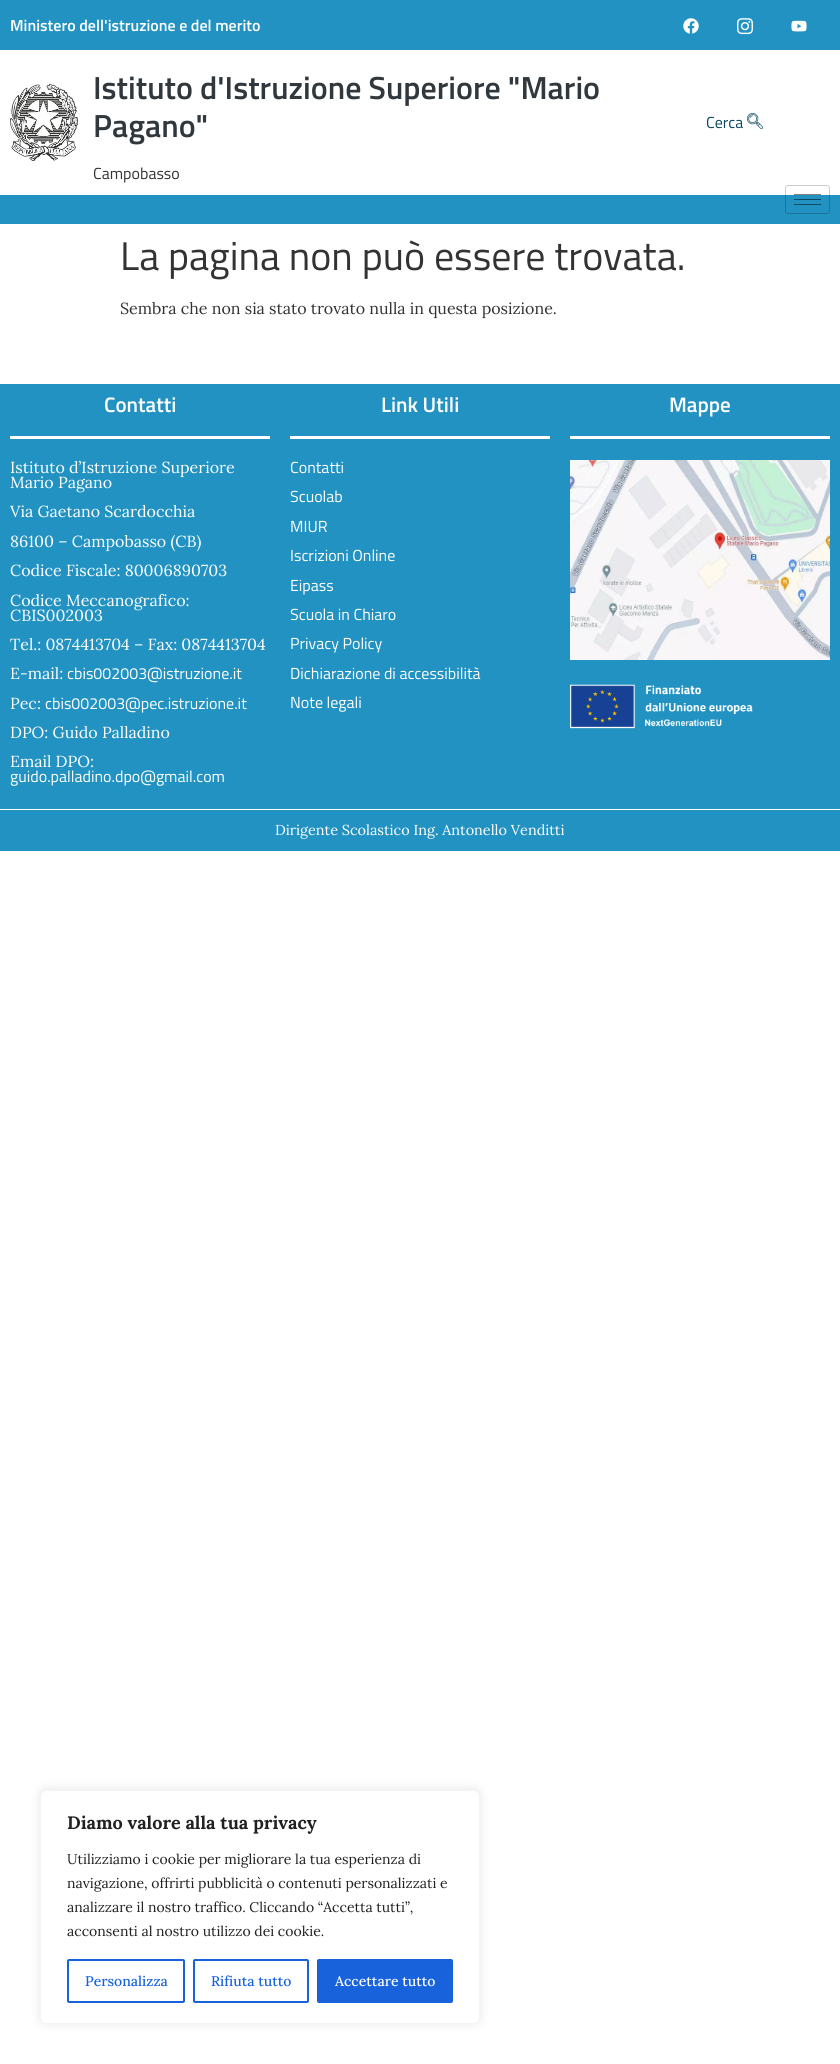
#include <cairo.h>
#include <math.h>
#include <stddef.h>


static void round_rect(cairo_t *cr, double x, double y, double w, double h, double r) {
    cairo_new_sub_path(cr);
    cairo_arc(cr, x + w - r, y + h - r, r, 0, M_PI / 2);
    cairo_arc(cr, x + r, y + h - r, r, M_PI / 2, M_PI);
    cairo_arc(cr, x + r, y + r, r, M_PI, 1.5 * M_PI);
    cairo_arc(cr, x + w - r, y + r, r, 1.5 * M_PI, 2 * M_PI);
    cairo_close_path(cr);
}

static void shadow(cairo_t *cr, double x, double y, double w, double h, double r, double blur, double alpha) {
    cairo_push_group_with_content(cr, CAIRO_CONTENT_ALPHA);
    cairo_set_operator(cr, CAIRO_OPERATOR_SOURCE);
    for (int i = 15; i >= -15 && fmin(w, h) + blur * i / 3 > 0; i -= 2) {
        double e = blur * i / 6;
        cairo_set_source_rgba(cr, 0, 0, 0, alpha * erfc((i - 1) / 8.5) / 2);
        round_rect(cr, x - e, y - e, w + 2 * e, h + 2 * e, fmax(0, fmin(r + e + blur * .6, fmin(w, h) / 2 + e)));
        cairo_fill(cr);
    }
    cairo_pattern_t *soft = cairo_pop_group(cr);
    cairo_mask(cr, soft);
    cairo_pattern_destroy(soft);
}

static void picture(cairo_t *cr, const char *path, double x, double y, double w, double h) {
    cairo_surface_t *image = cairo_image_surface_create_from_png(path);
    cairo_save(cr);
    cairo_set_source_surface(cr, image, x, y);
    cairo_rectangle(cr, x, y, w, h);
    cairo_fill(cr);
    cairo_restore(cr);
    cairo_surface_destroy(image);
}

int main(void) {
    cairo_surface_t *surface = cairo_image_surface_create(CAIRO_FORMAT_RGB24, 840, 2064);
    cairo_t *cr = cairo_create(surface);
    cairo_font_options_t *options = cairo_font_options_create();
    cairo_font_options_set_hint_metrics(options, CAIRO_HINT_METRICS_OFF);
    cairo_font_options_set_hint_style(options, CAIRO_HINT_STYLE_NONE);
    cairo_set_font_options(cr, options);
    cairo_set_miter_limit(cr, 4);
    cairo_set_source_rgb(cr, 1, 1, 1);
    cairo_paint(cr);
    cairo_set_source_rgb(cr, 0.129, 0.573, 0.757);
    cairo_rectangle(cr, 0, 0, 840, 50);
    cairo_fill(cr);
    cairo_select_font_face(cr, "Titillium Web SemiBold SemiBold", CAIRO_FONT_SLANT_NORMAL, CAIRO_FONT_WEIGHT_NORMAL);
    cairo_set_font_size(cr, 16);
    cairo_set_source_rgb(cr, 1, 1, 1);
    cairo_move_to(cr, 10, 31);
    cairo_show_text(cr, "Ministero dell'istruzione e del merito");
    picture(cr, "img1.png", 683, 18, 16, 16);
    picture(cr, "img2.png", 737, 18, 16, 17);
    picture(cr, "img3.png", 791, 20, 16, 12);
    picture(cr, "img4.png", 10, 84, 68, 77);
    cairo_set_font_size(cr, 32);
    cairo_set_source_rgb(cr, 0.188, 0.216, 0.239);
    cairo_move_to(cr, 93, 99);
    cairo_show_text(cr, "Istituto d'Istruzione Superiore \"Mario");
    cairo_move_to(cr, 93, 137);
    cairo_show_text(cr, "Pagano\"");
    cairo_select_font_face(cr, "Titillium Web", CAIRO_FONT_SLANT_NORMAL, CAIRO_FONT_WEIGHT_NORMAL);
    cairo_set_font_size(cr, 16);
    cairo_set_source_rgb(cr, 0.2, 0.2, 0.2);
    cairo_move_to(cr, 93, 179);
    cairo_show_text(cr, "Campobasso");
    cairo_set_source_rgb(cr, 0.047, 0.282, 0.384);
    cairo_move_to(cr, 706, 128);
    cairo_show_text(cr, "Cerca");
    picture(cr, "img5.png", 747, 113, 16, 16);
    cairo_set_source_rgb(cr, 0.129, 0.573, 0.757);
    cairo_rectangle(cr, 0, 195, 840, 29);
    cairo_fill(cr);
    round_rect(cr, 785.5, 185.5, 44, 28, 2.5);
    cairo_set_source_rgba(cr, 0, 0, 0, 0.2);
    cairo_set_line_width(cr, 1);
    cairo_stroke(cr);
    cairo_set_source_rgb(cr, 0.502, 0.502, 0.502);
    cairo_rectangle(cr, 794, 194, 27, 1);
    cairo_fill(cr);
    cairo_set_source_rgb(cr, 0.067, 0.286, 0.38);
    cairo_rectangle(cr, 794, 199, 27, 1);
    cairo_fill(cr);
    cairo_rectangle(cr, 794, 204, 27, 1);
    cairo_fill(cr);
    cairo_set_font_size(cr, 40);
    cairo_set_source_rgb(cr, 0.2, 0.2, 0.2);
    cairo_move_to(cr, 120, 270);
    cairo_show_text(cr, "La pagina non può essere trovata.");
    cairo_select_font_face(cr, "Lora", CAIRO_FONT_SLANT_NORMAL, CAIRO_FONT_WEIGHT_NORMAL);
    cairo_set_font_size(cr, 16);
    cairo_move_to(cr, 120, 314);
    cairo_show_text(cr, "Sembra che non sia stato trovato nulla in questa posizione.");
    cairo_set_source_rgb(cr, 0.129, 0.573, 0.757);
    cairo_rectangle(cr, 0, 384, 840, 425);
    cairo_fill(cr);
    cairo_select_font_face(cr, "Titillium Web SemiBold SemiBold", CAIRO_FONT_SLANT_NORMAL, CAIRO_FONT_WEIGHT_NORMAL);
    cairo_set_font_size(cr, 21);
    cairo_set_source_rgb(cr, 1, 1, 1);
    cairo_move_to(cr, 104, 412);
    cairo_show_text(cr, "Contatti");
    cairo_rectangle(cr, 10, 436, 260, 3);
    cairo_fill(cr);
    cairo_select_font_face(cr, "Lora", CAIRO_FONT_SLANT_NORMAL, CAIRO_FONT_WEIGHT_NORMAL);
    cairo_set_font_size(cr, 16);
    cairo_move_to(cr, 10, 473);
    cairo_show_text(cr, "Istituto d’Istruzione Superiore");
    cairo_move_to(cr, 10, 488);
    cairo_show_text(cr, "Mario Pagano");
    cairo_move_to(cr, 10, 517);
    cairo_show_text(cr, "Via Gaetano Scardocchia");
    cairo_move_to(cr, 10, 547);
    cairo_show_text(cr, "86100 – Campobasso (CB)");
    cairo_move_to(cr, 10, 576);
    cairo_show_text(cr, "Codice Fiscale: 80006890703");
    cairo_move_to(cr, 10, 606);
    cairo_show_text(cr, "Codice Meccanografico:");
    cairo_move_to(cr, 10, 621);
    cairo_show_text(cr, "CBIS002003");
    cairo_move_to(cr, 10, 650);
    cairo_show_text(cr, "Tel.: 0874413704 – Fax: 0874413704");
    cairo_move_to(cr, 10, 679);
    cairo_show_text(cr, "E-mail:");
    cairo_select_font_face(cr, "Titillium Web", CAIRO_FONT_SLANT_NORMAL, CAIRO_FONT_WEIGHT_NORMAL);
    cairo_move_to(cr, 67, 679);
    cairo_show_text(cr, "cbis002003@istruzione.it");
    cairo_select_font_face(cr, "Lora", CAIRO_FONT_SLANT_NORMAL, CAIRO_FONT_WEIGHT_NORMAL);
    cairo_move_to(cr, 10, 709);
    cairo_show_text(cr, "Pec:");
    cairo_select_font_face(cr, "Titillium Web", CAIRO_FONT_SLANT_NORMAL, CAIRO_FONT_WEIGHT_NORMAL);
    cairo_move_to(cr, 45, 709);
    cairo_show_text(cr, "cbis002003@pec.istruzione.it");
    cairo_select_font_face(cr, "Lora", CAIRO_FONT_SLANT_NORMAL, CAIRO_FONT_WEIGHT_NORMAL);
    cairo_move_to(cr, 10, 738);
    cairo_show_text(cr, "DPO: Guido Palladino");
    cairo_move_to(cr, 10, 767);
    cairo_show_text(cr, "Email DPO:");
    cairo_select_font_face(cr, "Titillium Web", CAIRO_FONT_SLANT_NORMAL, CAIRO_FONT_WEIGHT_NORMAL);
    cairo_move_to(cr, 10, 782);
    cairo_show_text(cr, "guido.palladino.dpo@gmail.com");
    cairo_select_font_face(cr, "Titillium Web SemiBold SemiBold", CAIRO_FONT_SLANT_NORMAL, CAIRO_FONT_WEIGHT_NORMAL);
    cairo_set_font_size(cr, 21);
    cairo_move_to(cr, 381, 412);
    cairo_show_text(cr, "Link Utili");
    cairo_rectangle(cr, 290, 436, 260, 3);
    cairo_fill(cr);
    cairo_select_font_face(cr, "Titillium Web", CAIRO_FONT_SLANT_NORMAL, CAIRO_FONT_WEIGHT_NORMAL);
    cairo_set_font_size(cr, 16);
    cairo_move_to(cr, 290, 473);
    cairo_show_text(cr, "Contatti");
    cairo_move_to(cr, 290, 502);
    cairo_show_text(cr, "Scuolab");
    cairo_move_to(cr, 290, 532);
    cairo_show_text(cr, "MIUR");
    cairo_move_to(cr, 290, 561);
    cairo_show_text(cr, "Iscrizioni Online");
    cairo_move_to(cr, 290, 591);
    cairo_show_text(cr, "Eipass");
    cairo_move_to(cr, 290, 620);
    cairo_show_text(cr, "Scuola in Chiaro");
    cairo_move_to(cr, 290, 649);
    cairo_show_text(cr, "Privacy Policy");
    cairo_move_to(cr, 290, 679);
    cairo_show_text(cr, "Dichiarazione di accessibilità");
    cairo_move_to(cr, 290, 708);
    cairo_show_text(cr, "Note legali");
    cairo_select_font_face(cr, "Titillium Web SemiBold SemiBold", CAIRO_FONT_SLANT_NORMAL, CAIRO_FONT_WEIGHT_NORMAL);
    cairo_set_font_size(cr, 21);
    cairo_move_to(cr, 669, 412);
    cairo_show_text(cr, "Mappe");
    cairo_rectangle(cr, 570, 436, 260, 3);
    cairo_fill(cr);
    picture(cr, "img6.png", 570, 460, 260, 200);
    picture(cr, "img7.png", 570, 684, 183, 45);
    cairo_set_source_rgb(cr, 0.129, 0.573, 0.757);
    cairo_rectangle(cr, 0, 810, 840, 41);
    cairo_fill(cr);
    cairo_select_font_face(cr, "Lora", CAIRO_FONT_SLANT_NORMAL, CAIRO_FONT_WEIGHT_NORMAL);
    cairo_set_font_size(cr, 14.4);
    cairo_set_source_rgb(cr, 1, 1, 1);
    cairo_move_to(cr, 275, 835);
    cairo_show_text(cr, "Dirigente Scolastico Ing. Antonello Venditti");
    cairo_set_source_rgb(cr, 0.675, 0.671, 0.671);
    shadow(cr, 40, 1789, 440, 234, 6, 5, 0.3);
    cairo_set_source_rgb(cr, 1, 1, 1);
    round_rect(cr, 40.5, 1790.5, 439, 233, 5.5);
    cairo_fill_preserve(cr);
    cairo_set_source_rgb(cr, 0.957, 0.957, 0.957);
    cairo_stroke(cr);
    cairo_select_font_face(cr, "Lora", CAIRO_FONT_SLANT_NORMAL, CAIRO_FONT_WEIGHT_BOLD);
    cairo_set_font_size(cr, 18);
    cairo_set_source_rgb(cr, 0.129, 0.129, 0.129);
    cairo_move_to(cr, 67, 1829);
    cairo_show_text(cr, "Diamo valore alla tua privacy");
    cairo_select_font_face(cr, "Lora", CAIRO_FONT_SLANT_NORMAL, CAIRO_FONT_WEIGHT_NORMAL);
    cairo_set_font_size(cr, 14);
    cairo_move_to(cr, 67, 1864);
    cairo_show_text(cr, "Utilizziamo i cookie per migliorare la tua esperienza di");
    cairo_move_to(cr, 67, 1888);
    cairo_show_text(cr, "navigazione, offrirti pubblicità o contenuti personalizzati e");
    cairo_move_to(cr, 67, 1912);
    cairo_show_text(cr, "analizzare il nostro traffico. Cliccando “Accetta tutti”,");
    cairo_move_to(cr, 67, 1936);
    cairo_show_text(cr, "acconsenti al nostro utilizzo dei cookie.");
    round_rect(cr, 68, 1960, 116, 42, 1);
    cairo_set_source_rgb(cr, 0.094, 0.388, 0.863);
    cairo_set_line_width(cr, 2);
    cairo_stroke(cr);
    cairo_select_font_face(cr, "Lora Medium", CAIRO_FONT_SLANT_NORMAL, CAIRO_FONT_WEIGHT_NORMAL);
    cairo_move_to(cr, 85, 1986);
    cairo_show_text(cr, "Personalizza");
    round_rect(cr, 194, 1960, 114, 42, 1);
    cairo_stroke(cr);
    cairo_move_to(cr, 211, 1986);
    cairo_show_text(cr, "Rifiuta tutto");
    round_rect(cr, 318, 1960, 134, 42, 1);
    cairo_fill_preserve(cr);
    cairo_stroke(cr);
    cairo_set_source_rgb(cr, 1, 1, 1);
    cairo_move_to(cr, 335, 1986);
    cairo_show_text(cr, "Accettare tutto");
    cairo_surface_write_to_png(surface, "page.png");
    cairo_font_options_destroy(options);
    cairo_destroy(cr);
    cairo_surface_destroy(surface);
    return 0;
}
